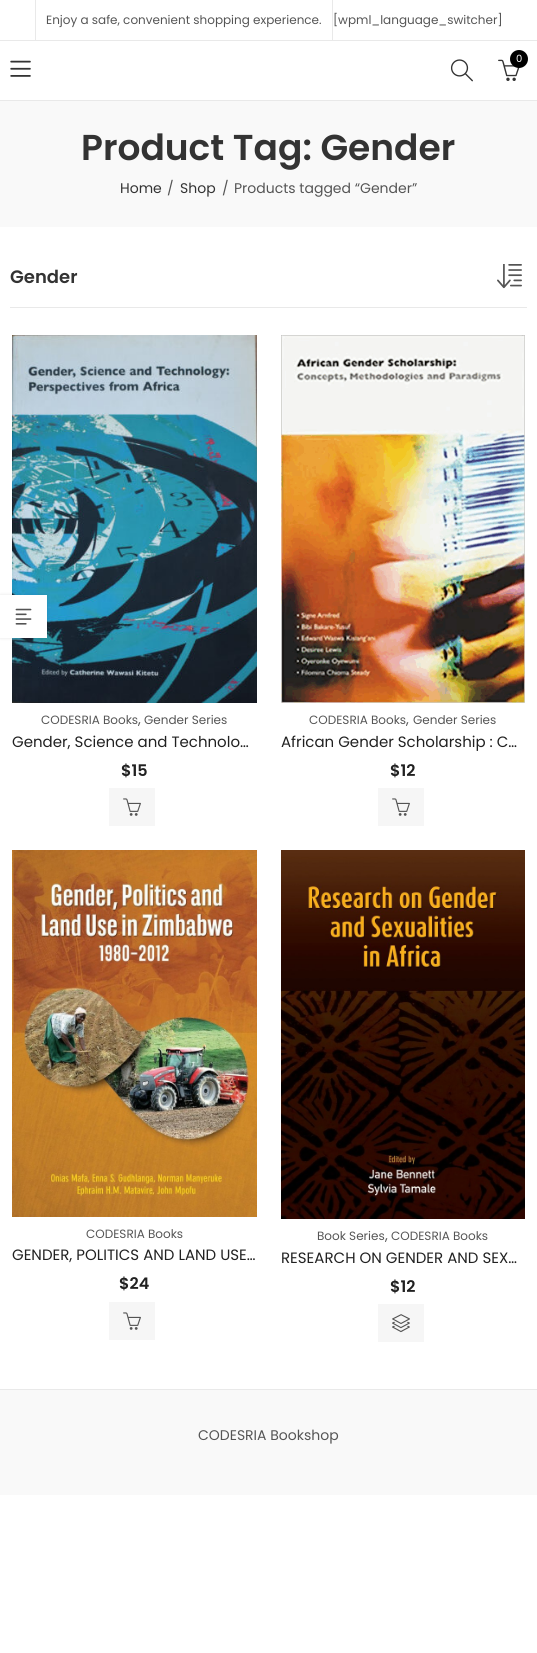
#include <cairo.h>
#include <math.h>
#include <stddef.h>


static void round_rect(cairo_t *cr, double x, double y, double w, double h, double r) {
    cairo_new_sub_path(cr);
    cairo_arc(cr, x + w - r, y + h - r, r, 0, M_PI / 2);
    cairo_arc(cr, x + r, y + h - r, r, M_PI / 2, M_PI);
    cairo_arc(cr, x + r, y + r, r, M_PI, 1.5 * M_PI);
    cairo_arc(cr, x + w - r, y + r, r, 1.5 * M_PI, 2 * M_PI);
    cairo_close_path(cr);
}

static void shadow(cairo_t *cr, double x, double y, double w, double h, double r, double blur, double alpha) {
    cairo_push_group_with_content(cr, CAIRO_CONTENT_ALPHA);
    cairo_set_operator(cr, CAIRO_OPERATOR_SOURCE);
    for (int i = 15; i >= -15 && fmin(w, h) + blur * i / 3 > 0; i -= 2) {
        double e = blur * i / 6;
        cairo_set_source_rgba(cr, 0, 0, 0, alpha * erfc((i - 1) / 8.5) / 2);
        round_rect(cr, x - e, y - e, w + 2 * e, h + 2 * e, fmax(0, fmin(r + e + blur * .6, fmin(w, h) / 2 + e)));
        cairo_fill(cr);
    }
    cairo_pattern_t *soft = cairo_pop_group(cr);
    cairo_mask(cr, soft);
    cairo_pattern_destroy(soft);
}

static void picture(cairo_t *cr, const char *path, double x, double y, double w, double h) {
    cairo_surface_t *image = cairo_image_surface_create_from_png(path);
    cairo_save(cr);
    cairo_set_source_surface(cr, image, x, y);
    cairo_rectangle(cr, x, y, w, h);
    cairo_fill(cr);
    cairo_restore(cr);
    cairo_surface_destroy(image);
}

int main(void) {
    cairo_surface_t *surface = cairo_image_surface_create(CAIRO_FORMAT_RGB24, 537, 1653);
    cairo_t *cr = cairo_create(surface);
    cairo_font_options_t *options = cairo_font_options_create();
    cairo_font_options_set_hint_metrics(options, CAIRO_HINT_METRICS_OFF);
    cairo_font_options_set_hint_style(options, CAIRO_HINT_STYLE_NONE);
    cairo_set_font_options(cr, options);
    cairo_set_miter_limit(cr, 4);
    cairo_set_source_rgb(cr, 1, 1, 1);
    cairo_paint(cr);
    cairo_set_source_rgb(cr, 0.914, 0.914, 0.914);
    cairo_rectangle(cr, 0, 40, 537, 1);
    cairo_fill(cr);
    cairo_rectangle(cr, 332, 0, 1, 40);
    cairo_fill(cr);
    cairo_rectangle(cr, 35, 0, 1, 40);
    cairo_fill(cr);
    cairo_select_font_face(cr, "Poppins", CAIRO_FONT_SLANT_NORMAL, CAIRO_FONT_WEIGHT_NORMAL);
    cairo_set_font_size(cr, 12);
    cairo_set_source_rgb(cr, 0.333, 0.333, 0.333);
    cairo_move_to(cr, 46, 24);
    cairo_show_text(cr, "Enjoy a safe, convenient shopping experience.");
    cairo_move_to(cr, 333, 24);
    cairo_show_text(cr, "[wpml_language_switcher]");
    cairo_set_source_rgb(cr, 0.914, 0.914, 0.914);
    cairo_rectangle(cr, 0, 100, 537, 1);
    cairo_fill(cr);
    picture(cr, "img1.png", 498, 59, 22, 22);
    cairo_set_source_rgb(cr, 0, 0, 0);
    cairo_arc(cr, 519, 59, 9, 0, 2 * M_PI);
    cairo_fill(cr);
    cairo_set_font_size(cr, 10);
    cairo_set_source_rgb(cr, 1, 1, 1);
    cairo_move_to(cr, 516, 62);
    cairo_show_text(cr, "0");
    picture(cr, "img2.png", 450, 59, 23, 23);
    picture(cr, "img3.png", 10, 60, 21, 17);
    cairo_set_source_rgb(cr, 0.973, 0.973, 0.973);
    cairo_rectangle(cr, 0, 101, 537, 126);
    cairo_fill(cr);
    cairo_select_font_face(cr, "Poppins SemiBold", CAIRO_FONT_SLANT_NORMAL, CAIRO_FONT_WEIGHT_NORMAL);
    cairo_set_font_size(cr, 36);
    cairo_set_source_rgb(cr, 0.2, 0.2, 0.2);
    cairo_move_to(cr, 81, 160);
    cairo_show_text(cr, "Product Tag: Gender");
    cairo_select_font_face(cr, "Poppins", CAIRO_FONT_SLANT_NORMAL, CAIRO_FONT_WEIGHT_NORMAL);
    cairo_set_font_size(cr, 14);
    cairo_move_to(cr, 120, 193);
    cairo_show_text(cr, "Home");
    cairo_set_source_rgb(cr, 0.333, 0.333, 0.333);
    cairo_move_to(cr, 167, 193);
    cairo_show_text(cr, "/");
    cairo_set_source_rgb(cr, 0.2, 0.2, 0.2);
    cairo_move_to(cr, 180, 193);
    cairo_show_text(cr, "Shop");
    cairo_set_source_rgb(cr, 0.333, 0.333, 0.333);
    cairo_move_to(cr, 222, 193);
    cairo_show_text(cr, "/");
    cairo_move_to(cr, 234, 193);
    cairo_show_text(cr, "Products tagged “Gender”");
    cairo_set_source_rgb(cr, 0.914, 0.914, 0.914);
    cairo_rectangle(cr, 10, 307, 517, 1);
    cairo_fill(cr);
    cairo_select_font_face(cr, "Poppins SemiBold", CAIRO_FONT_SLANT_NORMAL, CAIRO_FONT_WEIGHT_NORMAL);
    cairo_set_font_size(cr, 18);
    cairo_set_source_rgb(cr, 0.2, 0.2, 0.2);
    cairo_move_to(cr, 10, 283);
    cairo_show_text(cr, "Gender");
    picture(cr, "img4.png", 497, 264, 25, 25);
    picture(cr, "img5.png", 12, 335, 245, 368);
    cairo_select_font_face(cr, "Poppins", CAIRO_FONT_SLANT_NORMAL, CAIRO_FONT_WEIGHT_NORMAL);
    cairo_set_font_size(cr, 12);
    cairo_set_source_rgb(cr, 0.333, 0.333, 0.333);
    cairo_move_to(cr, 41, 724);
    cairo_show_text(cr, "CODESRIA Books");
    cairo_set_font_size(cr, 14);
    cairo_move_to(cr, 138, 724);
    cairo_show_text(cr, ",");
    cairo_set_font_size(cr, 12);
    cairo_move_to(cr, 144, 724);
    cairo_show_text(cr, "Gender Series");
    cairo_set_font_size(cr, 15);
    cairo_set_source_rgb(cr, 0.129, 0.129, 0.129);
    cairo_move_to(cr, 12, 747);
    cairo_show_text(cr, "Gender, Science and Technolo…");
    cairo_select_font_face(cr, "Poppins SemiBold", CAIRO_FONT_SLANT_NORMAL, CAIRO_FONT_WEIGHT_NORMAL);
    cairo_set_font_size(cr, 16);
    cairo_move_to(cr, 121, 776);
    cairo_show_text(cr, "$15");
    cairo_set_source_rgb(cr, 0.961, 0.961, 0.961);
    cairo_rectangle(cr, 109, 788, 46, 38);
    cairo_fill(cr);
    picture(cr, "img6.png", 123, 798, 18, 18);
    picture(cr, "img7.png", 281, 335, 244, 368);
    cairo_select_font_face(cr, "Poppins", CAIRO_FONT_SLANT_NORMAL, CAIRO_FONT_WEIGHT_NORMAL);
    cairo_set_font_size(cr, 12);
    cairo_set_source_rgb(cr, 0.333, 0.333, 0.333);
    cairo_move_to(cr, 309, 724);
    cairo_show_text(cr, "CODESRIA Books");
    cairo_set_font_size(cr, 14);
    cairo_move_to(cr, 406, 724);
    cairo_show_text(cr, ",");
    cairo_set_font_size(cr, 12);
    cairo_move_to(cr, 413, 724);
    cairo_show_text(cr, "Gender Series");
    cairo_set_font_size(cr, 15);
    cairo_set_source_rgb(cr, 0.129, 0.129, 0.129);
    cairo_move_to(cr, 281, 747);
    cairo_show_text(cr, "African Gender Scholarship : C…");
    cairo_select_font_face(cr, "Poppins SemiBold", CAIRO_FONT_SLANT_NORMAL, CAIRO_FONT_WEIGHT_NORMAL);
    cairo_set_font_size(cr, 16);
    cairo_move_to(cr, 390, 776);
    cairo_show_text(cr, "$12");
    cairo_set_source_rgb(cr, 0.961, 0.961, 0.961);
    cairo_rectangle(cr, 378, 788, 46, 38);
    cairo_fill(cr);
    picture(cr, "img6.png", 392, 798, 18, 18);
    picture(cr, "img8.png", 12, 850, 245, 367);
    cairo_select_font_face(cr, "Poppins", CAIRO_FONT_SLANT_NORMAL, CAIRO_FONT_WEIGHT_NORMAL);
    cairo_set_font_size(cr, 12);
    cairo_set_source_rgb(cr, 0.333, 0.333, 0.333);
    cairo_move_to(cr, 86, 1238);
    cairo_show_text(cr, "CODESRIA Books");
    cairo_set_font_size(cr, 15);
    cairo_set_source_rgb(cr, 0.129, 0.129, 0.129);
    cairo_move_to(cr, 12, 1260);
    cairo_show_text(cr, "GENDER, POLITICS AND LAND USE…");
    cairo_select_font_face(cr, "Poppins SemiBold", CAIRO_FONT_SLANT_NORMAL, CAIRO_FONT_WEIGHT_NORMAL);
    cairo_set_font_size(cr, 16);
    cairo_move_to(cr, 119, 1289);
    cairo_show_text(cr, "$24");
    cairo_set_source_rgb(cr, 0.961, 0.961, 0.961);
    cairo_rectangle(cr, 109, 1302, 46, 38);
    cairo_fill(cr);
    picture(cr, "img6.png", 123, 1312, 18, 18);
    picture(cr, "img9.png", 281, 850, 244, 369);
    cairo_select_font_face(cr, "Poppins", CAIRO_FONT_SLANT_NORMAL, CAIRO_FONT_WEIGHT_NORMAL);
    cairo_set_font_size(cr, 12);
    cairo_set_source_rgb(cr, 0.333, 0.333, 0.333);
    cairo_move_to(cr, 317, 1240);
    cairo_show_text(cr, "Book Series");
    cairo_set_font_size(cr, 14);
    cairo_move_to(cr, 385, 1240);
    cairo_show_text(cr, ",");
    cairo_set_font_size(cr, 12);
    cairo_move_to(cr, 391, 1240);
    cairo_show_text(cr, "CODESRIA Books");
    cairo_set_font_size(cr, 15);
    cairo_set_source_rgb(cr, 0.129, 0.129, 0.129);
    cairo_move_to(cr, 281, 1263);
    cairo_show_text(cr, "RESEARCH ON GENDER AND SEX…");
    cairo_select_font_face(cr, "Poppins SemiBold", CAIRO_FONT_SLANT_NORMAL, CAIRO_FONT_WEIGHT_NORMAL);
    cairo_set_font_size(cr, 16);
    cairo_move_to(cr, 390, 1292);
    cairo_show_text(cr, "$12");
    cairo_set_source_rgb(cr, 0.961, 0.961, 0.961);
    cairo_rectangle(cr, 378, 1304, 46, 38);
    cairo_fill(cr);
    picture(cr, "img10.png", 392, 1314, 18, 19);
    cairo_set_source_rgb(cr, 0.973, 0.973, 0.973);
    cairo_rectangle(cr, 0, 1390, 537, 105);
    cairo_fill(cr);
    cairo_set_source_rgb(cr, 0.914, 0.914, 0.914);
    cairo_rectangle(cr, 0, 1389, 537, 1);
    cairo_fill(cr);
    cairo_select_font_face(cr, "Poppins", CAIRO_FONT_SLANT_NORMAL, CAIRO_FONT_WEIGHT_NORMAL);
    cairo_set_font_size(cr, 14);
    cairo_set_source_rgb(cr, 0.333, 0.333, 0.333);
    cairo_move_to(cr, 198, 1440);
    cairo_show_text(cr, "CODESRIA Bookshop");
    cairo_set_source_rgb(cr, 0, 0, 0);
    shadow(cr, 0, 595, 47, 43, 0, 1.5, 0.1);
    cairo_set_source_rgb(cr, 1, 1, 1);
    cairo_rectangle(cr, 0, 595, 47, 43);
    cairo_fill(cr);
    picture(cr, "img11.png", 15, 608, 17, 17);
    cairo_surface_write_to_png(surface, "page.png");
    cairo_font_options_destroy(options);
    cairo_destroy(cr);
    cairo_surface_destroy(surface);
    return 0;
}
